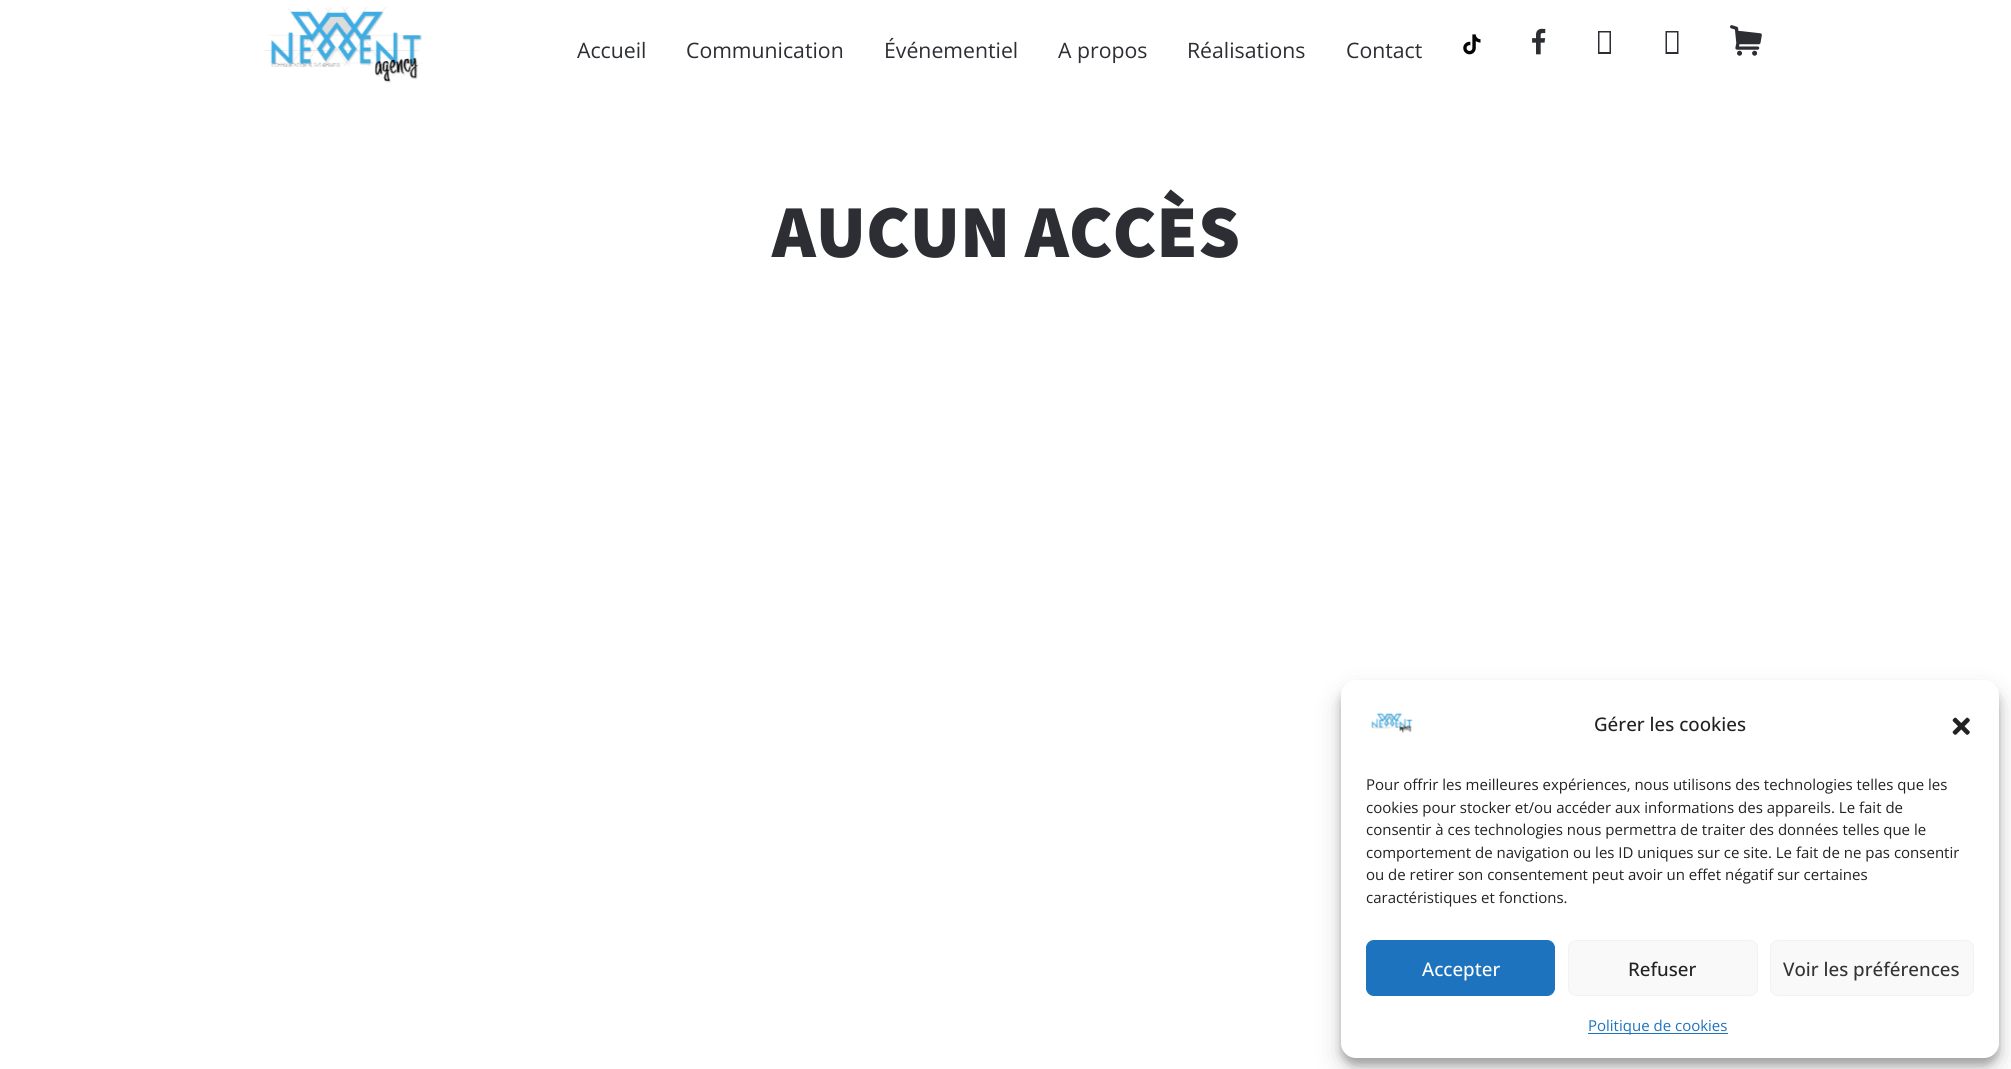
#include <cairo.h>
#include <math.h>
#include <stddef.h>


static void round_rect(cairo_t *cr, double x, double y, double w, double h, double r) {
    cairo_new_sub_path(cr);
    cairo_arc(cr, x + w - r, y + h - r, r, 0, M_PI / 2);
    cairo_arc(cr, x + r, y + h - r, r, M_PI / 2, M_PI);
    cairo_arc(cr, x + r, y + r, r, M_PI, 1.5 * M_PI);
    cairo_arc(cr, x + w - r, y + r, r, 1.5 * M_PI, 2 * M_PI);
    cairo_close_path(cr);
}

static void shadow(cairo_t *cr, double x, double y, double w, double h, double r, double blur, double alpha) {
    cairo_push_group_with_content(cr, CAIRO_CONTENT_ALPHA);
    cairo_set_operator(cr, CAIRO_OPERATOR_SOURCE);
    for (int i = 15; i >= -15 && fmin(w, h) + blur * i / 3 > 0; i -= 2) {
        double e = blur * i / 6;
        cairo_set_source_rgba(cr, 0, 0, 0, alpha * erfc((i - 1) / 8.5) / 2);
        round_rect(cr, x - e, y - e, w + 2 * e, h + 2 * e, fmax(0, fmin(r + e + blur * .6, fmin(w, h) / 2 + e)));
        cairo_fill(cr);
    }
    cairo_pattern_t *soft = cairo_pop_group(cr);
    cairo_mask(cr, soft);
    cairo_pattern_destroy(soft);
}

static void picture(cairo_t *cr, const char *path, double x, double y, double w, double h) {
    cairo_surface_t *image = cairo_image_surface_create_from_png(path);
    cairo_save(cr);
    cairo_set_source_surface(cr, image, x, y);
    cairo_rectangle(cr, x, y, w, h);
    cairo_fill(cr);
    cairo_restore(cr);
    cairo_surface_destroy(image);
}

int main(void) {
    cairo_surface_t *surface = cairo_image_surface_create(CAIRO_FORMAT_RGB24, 2011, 1069);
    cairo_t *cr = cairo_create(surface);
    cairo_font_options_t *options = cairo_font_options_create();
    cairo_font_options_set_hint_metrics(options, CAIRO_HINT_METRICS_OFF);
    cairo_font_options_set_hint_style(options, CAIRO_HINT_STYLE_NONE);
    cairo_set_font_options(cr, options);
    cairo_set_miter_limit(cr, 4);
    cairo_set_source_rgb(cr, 1, 1, 1);
    cairo_paint(cr);
    picture(cr, "img1.png", 265, 7, 158, 76);
    cairo_select_font_face(cr, "Open Sans", CAIRO_FONT_SLANT_NORMAL, CAIRO_FONT_WEIGHT_NORMAL);
    cairo_set_font_size(cr, 21.25);
    cairo_set_source_rgb(cr, 0.173, 0.18, 0.2);
    cairo_move_to(cr, 577, 58);
    cairo_show_text(cr, "Accueil");
    cairo_move_to(cr, 686, 58);
    cairo_show_text(cr, "Communication");
    cairo_move_to(cr, 884, 58);
    cairo_show_text(cr, "Événementiel");
    cairo_move_to(cr, 1058, 58);
    cairo_show_text(cr, "A propos");
    cairo_move_to(cr, 1187, 58);
    cairo_show_text(cr, "Réalisations");
    cairo_move_to(cr, 1346, 58);
    cairo_show_text(cr, "Contact");
    picture(cr, "img2.png", 1463, 34, 18, 21);
    picture(cr, "img3.png", 1532, 28, 14, 27);
    cairo_new_path(cr);
    cairo_move_to(cr, 1598, 54);
    cairo_line_to(cr, 1598, 31);
    cairo_line_to(cr, 1611, 31);
    cairo_line_to(cr, 1611, 54);
    cairo_close_path(cr);
    cairo_move_to(cr, 1599.5, 52);
    cairo_line_to(cr, 1609.5, 52);
    cairo_line_to(cr, 1609.5, 32.5);
    cairo_line_to(cr, 1599.5, 32.5);
    cairo_close_path(cr);
    cairo_fill(cr);
    cairo_new_path(cr);
    cairo_move_to(cr, 1665.5, 54);
    cairo_line_to(cr, 1665.5, 31);
    cairo_line_to(cr, 1678.5, 31);
    cairo_line_to(cr, 1678.5, 54);
    cairo_close_path(cr);
    cairo_move_to(cr, 1667, 52);
    cairo_line_to(cr, 1677, 52);
    cairo_line_to(cr, 1677, 32.5);
    cairo_line_to(cr, 1667, 32.5);
    cairo_close_path(cr);
    cairo_fill(cr);
    picture(cr, "img4.png", 1730, 25, 32, 31);
    cairo_select_font_face(cr, "Assistant ExtraBold", CAIRO_FONT_SLANT_NORMAL, CAIRO_FONT_WEIGHT_NORMAL);
    cairo_set_font_size(cr, 74.75);
    cairo_move_to(cr, 772, 257);
    cairo_show_text(cr, "AUCUN ACCÈS");
    cairo_set_source_rgb(cr, 0, 0, 0);
    shadow(cr, 1341, 688, 658, 377, 15, 4, 0.23);
    shadow(cr, 1341, 693, 658, 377, 15, 12.5, 0.19);
    cairo_set_source_rgb(cr, 1, 1, 1);
    round_rect(cr, 1341, 680, 658, 378, 15);
    cairo_fill(cr);
    picture(cr, "img5.png", 1371, 712, 42, 21);
    cairo_select_font_face(cr, "Open Sans Medium", CAIRO_FONT_SLANT_NORMAL, CAIRO_FONT_WEIGHT_NORMAL);
    cairo_set_font_size(cr, 18.75);
    cairo_set_source_rgb(cr, 0.133, 0.133, 0.133);
    cairo_move_to(cr, 1594, 731);
    cairo_show_text(cr, "Gérer les cookies");
    picture(cr, "img6.png", 1952, 717, 18, 18);
    cairo_select_font_face(cr, "Open Sans", CAIRO_FONT_SLANT_NORMAL, CAIRO_FONT_WEIGHT_NORMAL);
    cairo_set_font_size(cr, 15);
    cairo_move_to(cr, 1366, 790);
    cairo_show_text(cr, "Pour offrir les meilleures expériences, nous utilisons des technologies telles que les");
    cairo_move_to(cr, 1366, 813);
    cairo_show_text(cr, "cookies pour stocker et/ou accéder aux informations des appareils. Le fait de");
    cairo_move_to(cr, 1366, 835);
    cairo_show_text(cr, "consentir à ces technologies nous permettra de traiter des données telles que le");
    cairo_move_to(cr, 1366, 858);
    cairo_show_text(cr, "comportement de navigation ou les ID uniques sur ce site. Le fait de ne pas consentir");
    cairo_move_to(cr, 1366, 880);
    cairo_show_text(cr, "ou de retirer son consentement peut avoir un effet négatif sur certaines");
    cairo_move_to(cr, 1366, 903);
    cairo_show_text(cr, "caractéristiques et fonctions.");
    cairo_set_source_rgb(cr, 0.118, 0.451, 0.745);
    round_rect(cr, 1366.5, 940.5, 188, 55, 7.5);
    cairo_fill_preserve(cr);
    cairo_set_line_width(cr, 1);
    cairo_stroke(cr);
    cairo_select_font_face(cr, "Open Sans Medium", CAIRO_FONT_SLANT_NORMAL, CAIRO_FONT_WEIGHT_NORMAL);
    cairo_set_font_size(cr, 18.75);
    cairo_set_source_rgb(cr, 1, 1, 1);
    cairo_move_to(cr, 1422, 976);
    cairo_show_text(cr, "Accepter");
    cairo_set_source_rgb(cr, 0.976, 0.976, 0.976);
    round_rect(cr, 1568.5, 940.5, 189, 55, 7.5);
    cairo_fill_preserve(cr);
    cairo_set_source_rgb(cr, 0.949, 0.949, 0.949);
    cairo_stroke(cr);
    cairo_set_source_rgb(cr, 0.133, 0.133, 0.133);
    cairo_move_to(cr, 1628, 976);
    cairo_show_text(cr, "Refuser");
    cairo_set_source_rgb(cr, 0.976, 0.976, 0.976);
    round_rect(cr, 1770.5, 940.5, 203, 55, 7.5);
    cairo_fill_preserve(cr);
    cairo_set_source_rgb(cr, 0.949, 0.949, 0.949);
    cairo_stroke(cr);
    cairo_set_source_rgb(cr, 0.2, 0.2, 0.2);
    cairo_move_to(cr, 1783, 976);
    cairo_show_text(cr, "Voir les préférences");
    cairo_set_source_rgb(cr, 0.118, 0.451, 0.745);
    cairo_rectangle(cr, 1588, 1033, 140, 1);
    cairo_fill(cr);
    cairo_select_font_face(cr, "Open Sans", CAIRO_FONT_SLANT_NORMAL, CAIRO_FONT_WEIGHT_NORMAL);
    cairo_set_font_size(cr, 15);
    cairo_move_to(cr, 1588, 1031);
    cairo_show_text(cr, "Politique de cookies");
    cairo_surface_write_to_png(surface, "page.png");
    cairo_font_options_destroy(options);
    cairo_destroy(cr);
    cairo_surface_destroy(surface);
    return 0;
}
